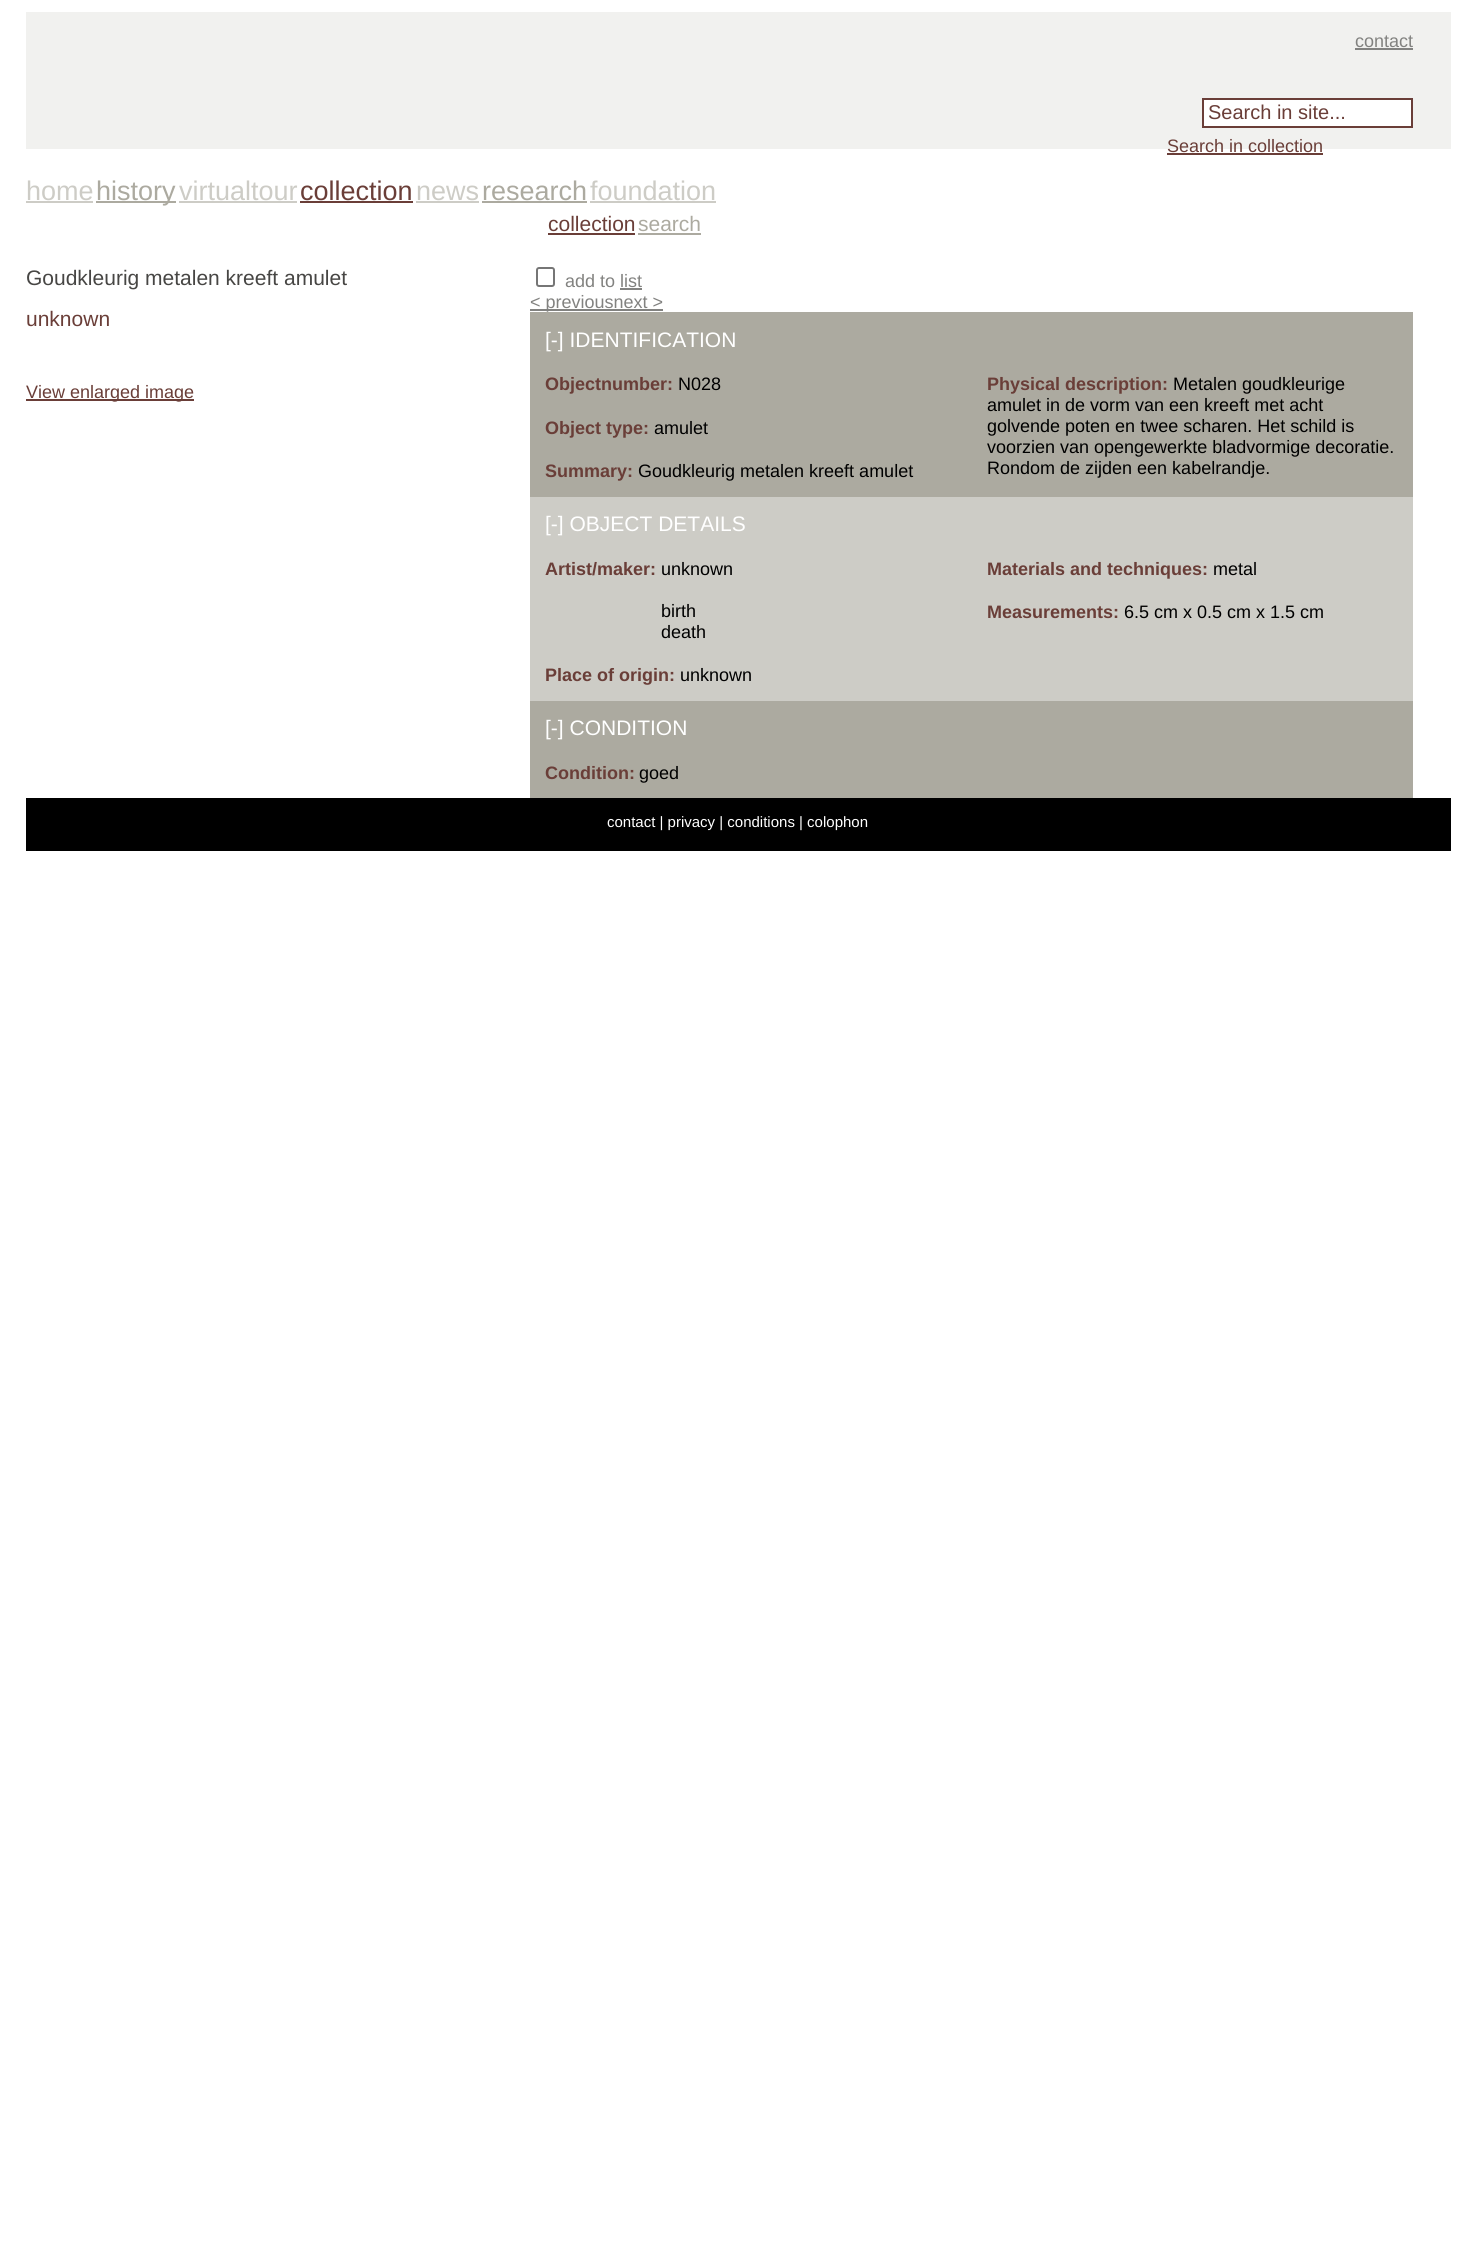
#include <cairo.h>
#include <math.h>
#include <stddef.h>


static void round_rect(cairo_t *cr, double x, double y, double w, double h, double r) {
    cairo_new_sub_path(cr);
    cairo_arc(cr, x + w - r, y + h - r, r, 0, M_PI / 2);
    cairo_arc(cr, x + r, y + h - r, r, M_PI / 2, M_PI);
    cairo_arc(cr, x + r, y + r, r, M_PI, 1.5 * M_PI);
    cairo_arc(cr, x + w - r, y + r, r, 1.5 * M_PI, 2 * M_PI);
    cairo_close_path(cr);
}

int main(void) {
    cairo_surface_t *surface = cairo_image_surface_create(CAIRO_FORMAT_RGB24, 1475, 2253);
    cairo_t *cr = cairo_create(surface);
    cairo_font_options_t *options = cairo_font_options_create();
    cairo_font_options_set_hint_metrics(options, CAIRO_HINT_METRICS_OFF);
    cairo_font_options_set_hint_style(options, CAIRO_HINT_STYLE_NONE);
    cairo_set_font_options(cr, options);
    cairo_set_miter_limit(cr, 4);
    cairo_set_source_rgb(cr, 1, 1, 1);
    cairo_paint(cr);
    cairo_set_source_rgb(cr, 0.945, 0.945, 0.937);
    cairo_rectangle(cr, 26, 12, 1425, 137);
    cairo_fill(cr);
    cairo_select_font_face(cr, "Liberation Sans", CAIRO_FONT_SLANT_NORMAL, CAIRO_FONT_WEIGHT_NORMAL);
    cairo_set_font_size(cr, 18);
    cairo_set_source_rgb(cr, 0.51, 0.51, 0.502);
    cairo_move_to(cr, 1355, 47);
    cairo_show_text(cr, "contact");
    cairo_rectangle(cr, 1355, 48, 58, 2);
    cairo_fill(cr);
    cairo_set_source_rgb(cr, 1, 1, 1);
    cairo_rectangle(cr, 1203, 99, 209, 28);
    cairo_fill_preserve(cr);
    cairo_set_source_rgb(cr, 0.416, 0.243, 0.22);
    cairo_stroke(cr);
    cairo_set_font_size(cr, 20);
    cairo_move_to(cr, 1208, 119);
    cairo_show_text(cr, "Search in site...");
    cairo_set_font_size(cr, 18);
    cairo_move_to(cr, 1167, 152);
    cairo_show_text(cr, "Search in collection");
    cairo_rectangle(cr, 1167, 153, 156, 2);
    cairo_fill(cr);
    cairo_set_font_size(cr, 27);
    cairo_set_source_rgb(cr, 0.804, 0.8, 0.776);
    cairo_move_to(cr, 26, 200);
    cairo_show_text(cr, "home");
    cairo_rectangle(cr, 26, 201, 67, 2);
    cairo_fill(cr);
    cairo_set_source_rgb(cr, 0.675, 0.667, 0.627);
    cairo_rectangle(cr, 96, 201, 80, 2);
    cairo_fill(cr);
    cairo_move_to(cr, 96, 200);
    cairo_show_text(cr, "history");
    cairo_set_source_rgb(cr, 0.804, 0.8, 0.776);
    cairo_move_to(cr, 179, 200);
    cairo_show_text(cr, "virtualtour");
    cairo_rectangle(cr, 179, 201, 118, 2);
    cairo_fill(cr);
    cairo_set_source_rgb(cr, 0.416, 0.243, 0.22);
    cairo_move_to(cr, 300, 200);
    cairo_show_text(cr, "collection");
    cairo_rectangle(cr, 300, 201, 113, 2);
    cairo_fill(cr);
    cairo_set_source_rgb(cr, 0.804, 0.8, 0.776);
    cairo_move_to(cr, 416, 200);
    cairo_show_text(cr, "news");
    cairo_rectangle(cr, 416, 201, 63, 2);
    cairo_fill(cr);
    cairo_set_source_rgb(cr, 0.675, 0.667, 0.627);
    cairo_move_to(cr, 482, 200);
    cairo_show_text(cr, "research");
    cairo_rectangle(cr, 482, 201, 105, 2);
    cairo_fill(cr);
    cairo_set_source_rgb(cr, 0.804, 0.8, 0.776);
    cairo_move_to(cr, 590, 200);
    cairo_show_text(cr, "foundation");
    cairo_rectangle(cr, 590, 201, 126, 2);
    cairo_fill(cr);
    cairo_set_font_size(cr, 21);
    cairo_set_source_rgb(cr, 0.416, 0.243, 0.22);
    cairo_move_to(cr, 548, 231);
    cairo_show_text(cr, "collection");
    cairo_rectangle(cr, 548, 233, 87, 2);
    cairo_fill(cr);
    cairo_set_source_rgb(cr, 0.675, 0.667, 0.627);
    cairo_move_to(cr, 638, 231);
    cairo_show_text(cr, "search");
    cairo_rectangle(cr, 638, 233, 63, 2);
    cairo_fill(cr);
    cairo_set_source_rgb(cr, 0.278, 0.275, 0.267);
    cairo_move_to(cr, 26, 285);
    cairo_show_text(cr, "Goudkleurig metalen kreeft amulet");
    cairo_set_source_rgb(cr, 0.416, 0.243, 0.22);
    cairo_move_to(cr, 26, 326);
    cairo_show_text(cr, "unknown");
    cairo_rectangle(cr, 26, 399, 168, 2);
    cairo_fill(cr);
    cairo_set_font_size(cr, 18);
    cairo_move_to(cr, 26, 398);
    cairo_show_text(cr, "View enlarged image");
    round_rect(cr, 537, 268, 17, 18, 2);
    cairo_set_source_rgb(cr, 0.463, 0.463, 0.463);
    cairo_stroke(cr);
    cairo_set_source_rgb(cr, 0.51, 0.51, 0.502);
    cairo_move_to(cr, 565, 287);
    cairo_show_text(cr, "add to list");
    cairo_rectangle(cr, 620, 288, 22, 2);
    cairo_fill(cr);
    cairo_rectangle(cr, 530, 309, 133, 2);
    cairo_fill(cr);
    cairo_move_to(cr, 530, 308);
    cairo_show_text(cr, "< previousnext >");
    cairo_set_source_rgb(cr, 0.675, 0.667, 0.627);
    cairo_rectangle(cr, 530, 312, 883, 185);
    cairo_fill(cr);
    cairo_set_font_size(cr, 21);
    cairo_set_source_rgb(cr, 1, 1, 1);
    cairo_move_to(cr, 545, 347);
    cairo_show_text(cr, "[-] IDENTIFICATION");
    cairo_select_font_face(cr, "Liberation Sans", CAIRO_FONT_SLANT_NORMAL, CAIRO_FONT_WEIGHT_BOLD);
    cairo_set_font_size(cr, 18);
    cairo_set_source_rgb(cr, 0.416, 0.243, 0.22);
    cairo_move_to(cr, 545, 390);
    cairo_show_text(cr, "Objectnumber:");
    cairo_select_font_face(cr, "Liberation Sans", CAIRO_FONT_SLANT_NORMAL, CAIRO_FONT_WEIGHT_NORMAL);
    cairo_set_source_rgb(cr, 0, 0, 0);
    cairo_move_to(cr, 678, 390);
    cairo_show_text(cr, "N028");
    cairo_select_font_face(cr, "Liberation Sans", CAIRO_FONT_SLANT_NORMAL, CAIRO_FONT_WEIGHT_BOLD);
    cairo_set_source_rgb(cr, 0.416, 0.243, 0.22);
    cairo_move_to(cr, 545, 434);
    cairo_show_text(cr, "Object type:");
    cairo_select_font_face(cr, "Liberation Sans", CAIRO_FONT_SLANT_NORMAL, CAIRO_FONT_WEIGHT_NORMAL);
    cairo_set_source_rgb(cr, 0, 0, 0);
    cairo_move_to(cr, 654, 434);
    cairo_show_text(cr, "amulet");
    cairo_select_font_face(cr, "Liberation Sans", CAIRO_FONT_SLANT_NORMAL, CAIRO_FONT_WEIGHT_BOLD);
    cairo_set_source_rgb(cr, 0.416, 0.243, 0.22);
    cairo_move_to(cr, 545, 477);
    cairo_show_text(cr, "Summary:");
    cairo_select_font_face(cr, "Liberation Sans", CAIRO_FONT_SLANT_NORMAL, CAIRO_FONT_WEIGHT_NORMAL);
    cairo_set_source_rgb(cr, 0, 0, 0);
    cairo_move_to(cr, 638, 477);
    cairo_show_text(cr, "Goudkleurig metalen kreeft amulet");
    cairo_select_font_face(cr, "Liberation Sans", CAIRO_FONT_SLANT_NORMAL, CAIRO_FONT_WEIGHT_BOLD);
    cairo_set_source_rgb(cr, 0.416, 0.243, 0.22);
    cairo_move_to(cr, 987, 390);
    cairo_show_text(cr, "Physical description:");
    cairo_select_font_face(cr, "Liberation Sans", CAIRO_FONT_SLANT_NORMAL, CAIRO_FONT_WEIGHT_NORMAL);
    cairo_set_source_rgb(cr, 0, 0, 0);
    cairo_move_to(cr, 1173, 390);
    cairo_show_text(cr, "Metalen goudkleurige");
    cairo_move_to(cr, 987, 411);
    cairo_show_text(cr, "amulet in de vorm van een kreeft met acht");
    cairo_move_to(cr, 987, 432);
    cairo_show_text(cr, "golvende poten en twee scharen. Het schild is");
    cairo_move_to(cr, 987, 453);
    cairo_show_text(cr, "voorzien van opengewerkte bladvormige decoratie.");
    cairo_move_to(cr, 987, 474);
    cairo_show_text(cr, "Rondom de zijden een kabelrandje.");
    cairo_set_source_rgb(cr, 0.804, 0.8, 0.776);
    cairo_rectangle(cr, 530, 497, 883, 204);
    cairo_fill(cr);
    cairo_set_font_size(cr, 21);
    cairo_set_source_rgb(cr, 1, 1, 1);
    cairo_move_to(cr, 545, 531);
    cairo_show_text(cr, "[-] OBJECT DETAILS");
    cairo_select_font_face(cr, "Liberation Sans", CAIRO_FONT_SLANT_NORMAL, CAIRO_FONT_WEIGHT_BOLD);
    cairo_set_font_size(cr, 18);
    cairo_set_source_rgb(cr, 0.416, 0.243, 0.22);
    cairo_move_to(cr, 545, 575);
    cairo_show_text(cr, "Artist/maker:");
    cairo_select_font_face(cr, "Liberation Sans", CAIRO_FONT_SLANT_NORMAL, CAIRO_FONT_WEIGHT_NORMAL);
    cairo_set_source_rgb(cr, 0, 0, 0);
    cairo_move_to(cr, 661, 575);
    cairo_show_text(cr, "unknown");
    cairo_move_to(cr, 661, 617);
    cairo_show_text(cr, "birth");
    cairo_move_to(cr, 661, 638);
    cairo_show_text(cr, "death");
    cairo_select_font_face(cr, "Liberation Sans", CAIRO_FONT_SLANT_NORMAL, CAIRO_FONT_WEIGHT_BOLD);
    cairo_set_source_rgb(cr, 0.416, 0.243, 0.22);
    cairo_move_to(cr, 545, 681);
    cairo_show_text(cr, "Place of origin:");
    cairo_select_font_face(cr, "Liberation Sans", CAIRO_FONT_SLANT_NORMAL, CAIRO_FONT_WEIGHT_NORMAL);
    cairo_set_source_rgb(cr, 0, 0, 0);
    cairo_move_to(cr, 680, 681);
    cairo_show_text(cr, "unknown");
    cairo_select_font_face(cr, "Liberation Sans", CAIRO_FONT_SLANT_NORMAL, CAIRO_FONT_WEIGHT_BOLD);
    cairo_set_source_rgb(cr, 0.416, 0.243, 0.22);
    cairo_move_to(cr, 987, 575);
    cairo_show_text(cr, "Materials and techniques:");
    cairo_select_font_face(cr, "Liberation Sans", CAIRO_FONT_SLANT_NORMAL, CAIRO_FONT_WEIGHT_NORMAL);
    cairo_set_source_rgb(cr, 0, 0, 0);
    cairo_move_to(cr, 1213, 575);
    cairo_show_text(cr, "metal");
    cairo_select_font_face(cr, "Liberation Sans", CAIRO_FONT_SLANT_NORMAL, CAIRO_FONT_WEIGHT_BOLD);
    cairo_set_source_rgb(cr, 0.416, 0.243, 0.22);
    cairo_move_to(cr, 987, 618);
    cairo_show_text(cr, "Measurements:");
    cairo_select_font_face(cr, "Liberation Sans", CAIRO_FONT_SLANT_NORMAL, CAIRO_FONT_WEIGHT_NORMAL);
    cairo_set_source_rgb(cr, 0, 0, 0);
    cairo_move_to(cr, 1124, 618);
    cairo_show_text(cr, "6.5 cm x 0.5 cm x 1.5 cm");
    cairo_set_source_rgb(cr, 0.675, 0.667, 0.627);
    cairo_rectangle(cr, 530, 701, 883, 97);
    cairo_fill(cr);
    cairo_set_font_size(cr, 21);
    cairo_set_source_rgb(cr, 1, 1, 1);
    cairo_move_to(cr, 545, 735);
    cairo_show_text(cr, "[-] CONDITION");
    cairo_select_font_face(cr, "Liberation Sans", CAIRO_FONT_SLANT_NORMAL, CAIRO_FONT_WEIGHT_BOLD);
    cairo_set_font_size(cr, 18);
    cairo_set_source_rgb(cr, 0.416, 0.243, 0.22);
    cairo_move_to(cr, 545, 779);
    cairo_show_text(cr, "Condition:");
    cairo_select_font_face(cr, "Liberation Sans", CAIRO_FONT_SLANT_NORMAL, CAIRO_FONT_WEIGHT_NORMAL);
    cairo_set_source_rgb(cr, 0, 0, 0);
    cairo_move_to(cr, 639, 779);
    cairo_show_text(cr, "goed");
    cairo_rectangle(cr, 26, 798, 1425, 53);
    cairo_fill(cr);
    cairo_set_font_size(cr, 15);
    cairo_set_source_rgb(cr, 1, 1, 1);
    cairo_move_to(cr, 607, 827);
    cairo_show_text(cr, "contact | privacy | conditions | colophon");
    cairo_surface_write_to_png(surface, "page.png");
    cairo_font_options_destroy(options);
    cairo_destroy(cr);
    cairo_surface_destroy(surface);
    return 0;
}
